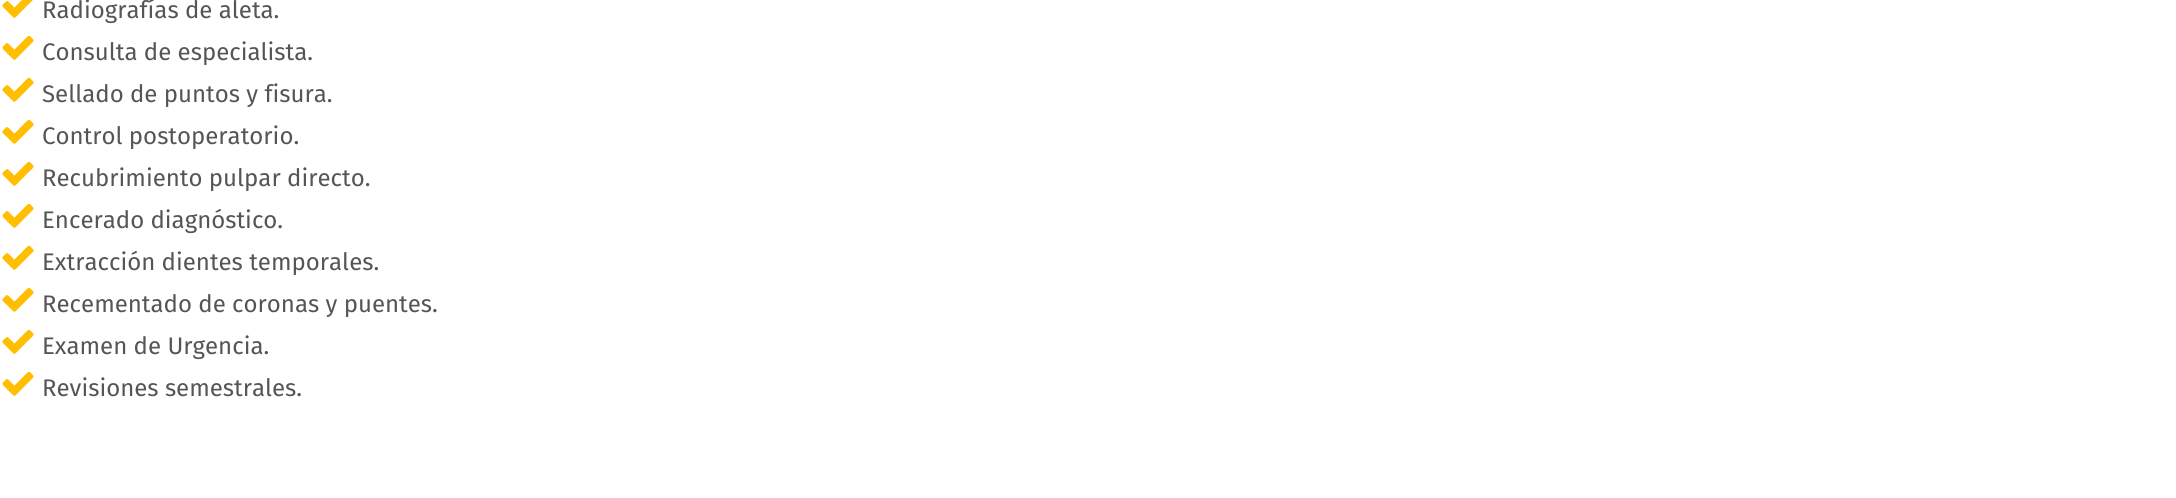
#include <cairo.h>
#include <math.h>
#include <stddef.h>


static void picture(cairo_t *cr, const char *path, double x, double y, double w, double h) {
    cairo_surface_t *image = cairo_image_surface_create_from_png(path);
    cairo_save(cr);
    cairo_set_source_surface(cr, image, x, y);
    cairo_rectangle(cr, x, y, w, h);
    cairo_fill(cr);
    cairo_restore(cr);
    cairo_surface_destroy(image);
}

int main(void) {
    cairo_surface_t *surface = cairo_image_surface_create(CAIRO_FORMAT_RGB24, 2176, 498);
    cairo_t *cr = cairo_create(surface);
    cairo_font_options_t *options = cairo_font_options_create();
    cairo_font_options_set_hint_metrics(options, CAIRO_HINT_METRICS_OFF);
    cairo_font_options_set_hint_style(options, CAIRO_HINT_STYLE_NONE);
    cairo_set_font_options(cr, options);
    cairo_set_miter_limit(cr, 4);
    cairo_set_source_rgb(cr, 1, 1, 1);
    cairo_paint(cr);
    picture(cr, "img1.png", 2, 0, 31, 18);
    cairo_select_font_face(cr, "Fira Sans", CAIRO_FONT_SLANT_NORMAL, CAIRO_FONT_WEIGHT_NORMAL);
    cairo_set_font_size(cr, 24);
    cairo_set_source_rgb(cr, 0.333, 0.333, 0.333);
    cairo_move_to(cr, 42, 18);
    cairo_show_text(cr, "Radiografías de aleta.");
    picture(cr, "img2.png", 2, 35, 32, 25);
    cairo_move_to(cr, 42, 60);
    cairo_show_text(cr, "Consulta de especialista.");
    picture(cr, "img2.png", 2, 77, 32, 25);
    cairo_move_to(cr, 42, 102);
    cairo_show_text(cr, "Sellado de puntos y fisura.");
    picture(cr, "img2.png", 2, 119, 32, 25);
    cairo_move_to(cr, 42, 144);
    cairo_show_text(cr, "Control postoperatorio.");
    picture(cr, "img2.png", 2, 161, 32, 25);
    cairo_move_to(cr, 42, 186);
    cairo_show_text(cr, "Recubrimiento pulpar directo.");
    picture(cr, "img2.png", 2, 203, 32, 25);
    cairo_move_to(cr, 42, 228);
    cairo_show_text(cr, "Encerado diagnóstico.");
    picture(cr, "img2.png", 2, 245, 32, 25);
    cairo_move_to(cr, 42, 270);
    cairo_show_text(cr, "Extracción dientes temporales.");
    picture(cr, "img2.png", 2, 287, 32, 25);
    cairo_move_to(cr, 42, 312);
    cairo_show_text(cr, "Recementado de coronas y puentes.");
    picture(cr, "img2.png", 2, 329, 32, 25);
    cairo_move_to(cr, 42, 354);
    cairo_show_text(cr, "Examen de Urgencia.");
    picture(cr, "img2.png", 2, 371, 32, 25);
    cairo_move_to(cr, 42, 396);
    cairo_show_text(cr, "Revisiones semestrales.");
    cairo_surface_write_to_png(surface, "page.png");
    cairo_font_options_destroy(options);
    cairo_destroy(cr);
    cairo_surface_destroy(surface);
    return 0;
}
